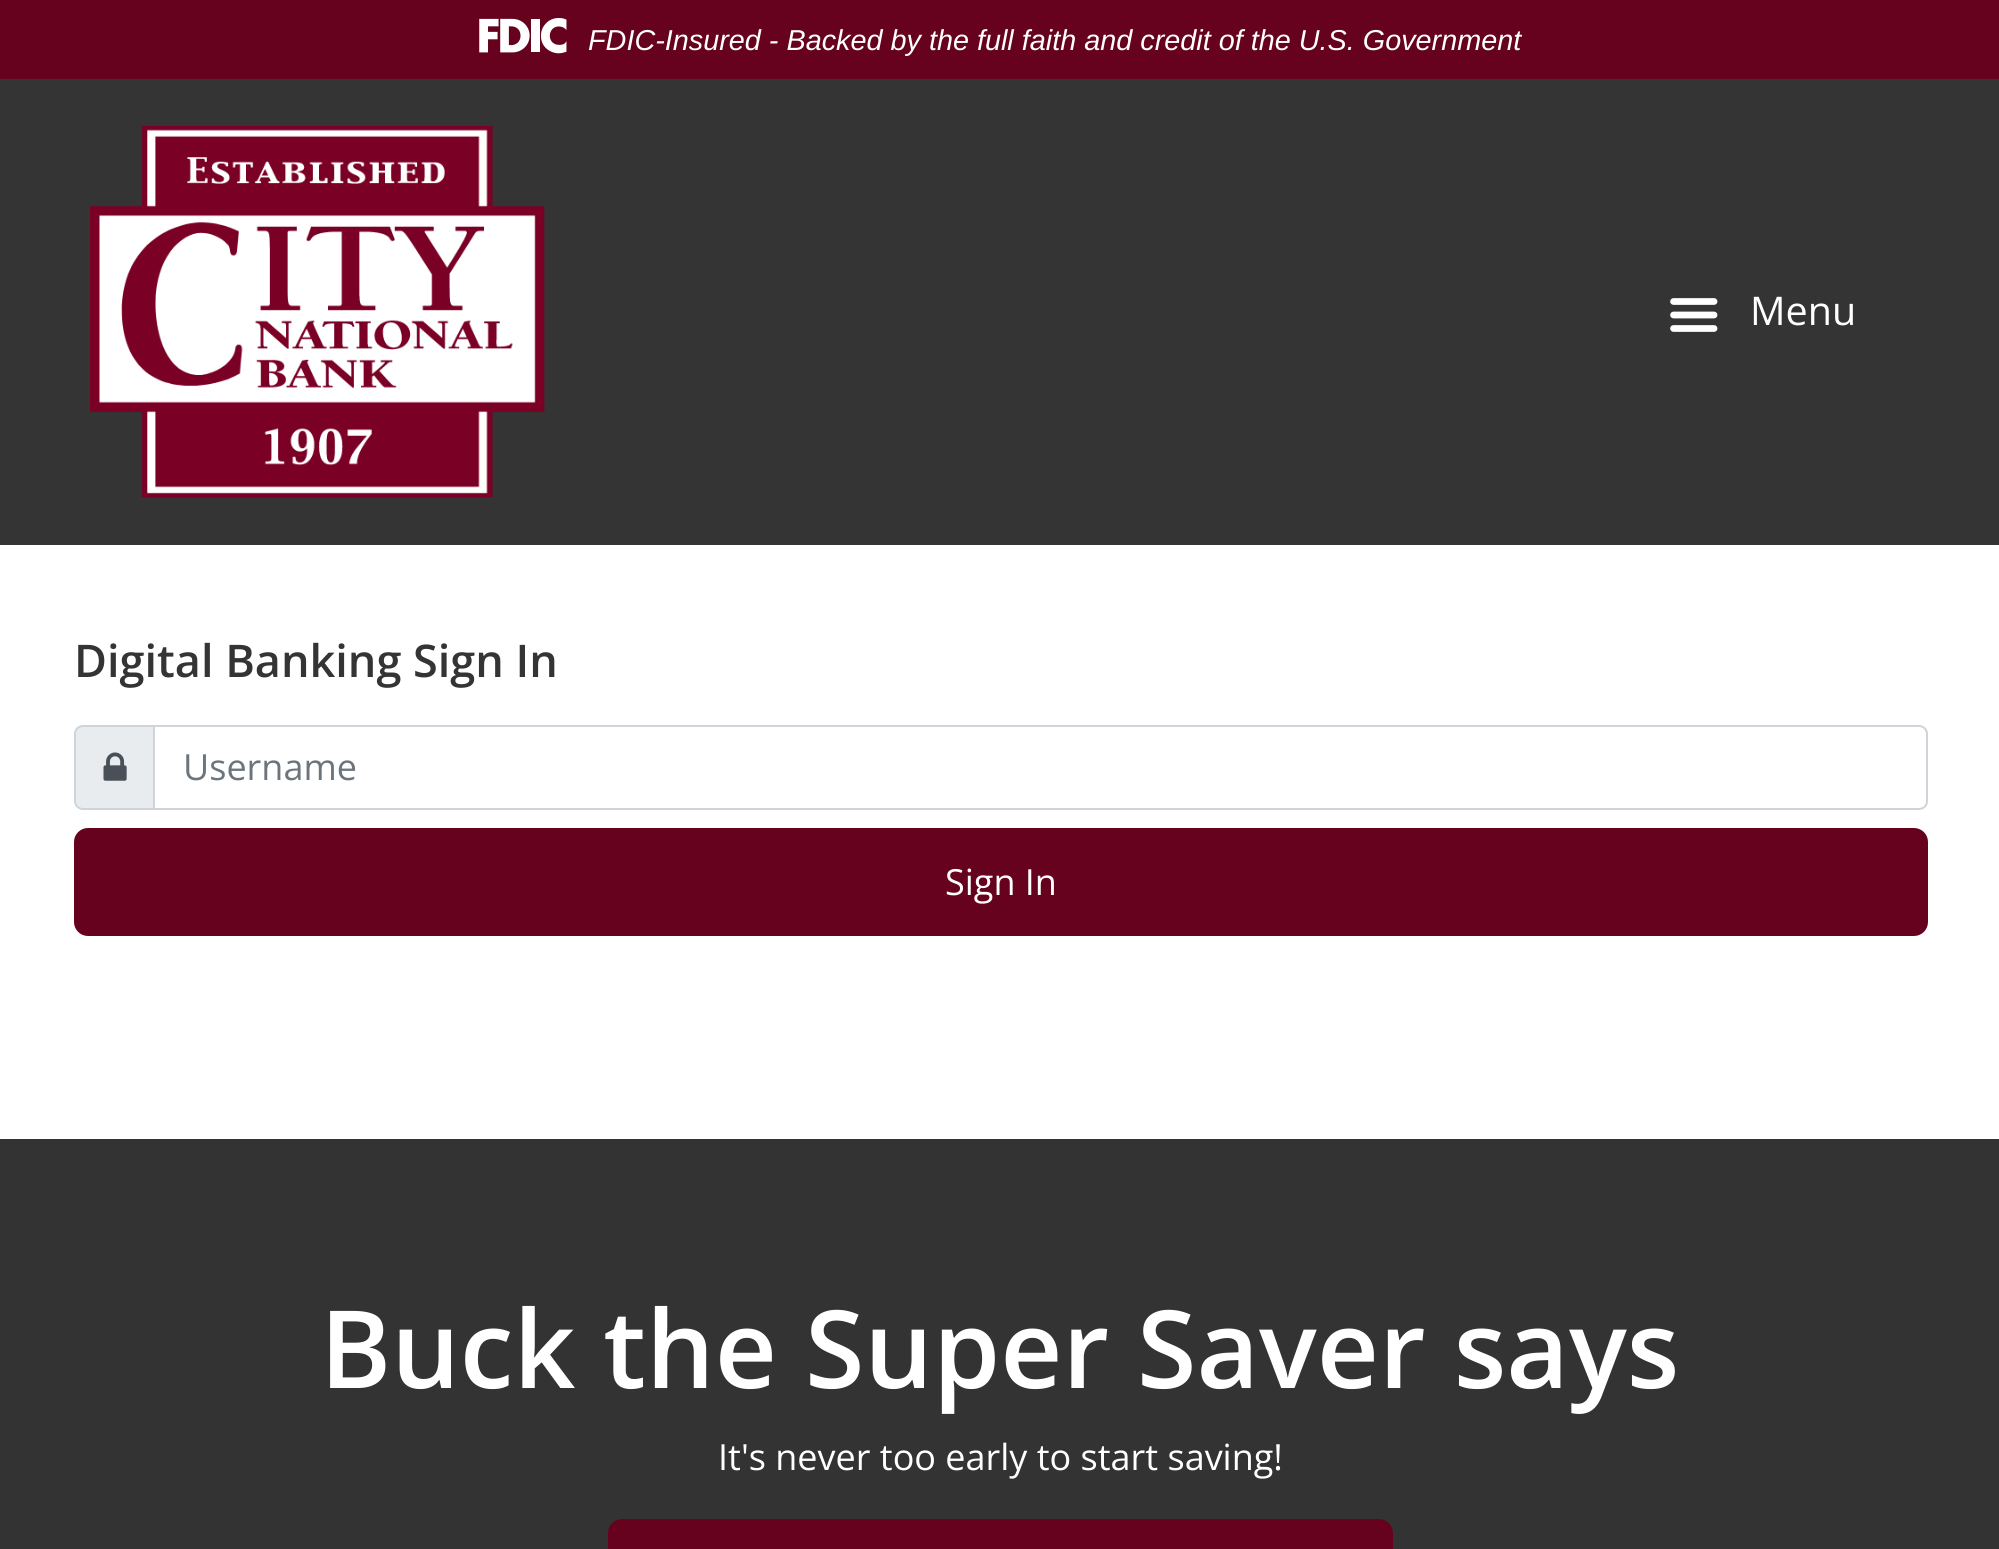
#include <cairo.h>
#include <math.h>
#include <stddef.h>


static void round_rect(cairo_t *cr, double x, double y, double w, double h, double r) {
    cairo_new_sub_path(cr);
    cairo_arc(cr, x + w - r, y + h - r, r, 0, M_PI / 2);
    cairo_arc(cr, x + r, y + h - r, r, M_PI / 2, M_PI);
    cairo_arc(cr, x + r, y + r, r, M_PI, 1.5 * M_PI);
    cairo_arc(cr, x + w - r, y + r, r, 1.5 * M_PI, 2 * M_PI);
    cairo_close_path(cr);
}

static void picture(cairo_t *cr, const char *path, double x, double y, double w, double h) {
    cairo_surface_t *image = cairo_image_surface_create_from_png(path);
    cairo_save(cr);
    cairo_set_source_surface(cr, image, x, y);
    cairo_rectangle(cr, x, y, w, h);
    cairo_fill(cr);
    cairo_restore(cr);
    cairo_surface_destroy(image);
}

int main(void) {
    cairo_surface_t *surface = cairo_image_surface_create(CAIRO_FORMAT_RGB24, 1999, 1549);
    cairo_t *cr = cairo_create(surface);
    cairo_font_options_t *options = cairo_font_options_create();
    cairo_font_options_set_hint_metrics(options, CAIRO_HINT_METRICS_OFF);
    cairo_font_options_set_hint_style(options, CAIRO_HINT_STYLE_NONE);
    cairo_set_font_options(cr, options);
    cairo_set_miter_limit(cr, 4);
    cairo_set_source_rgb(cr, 1, 1, 1);
    cairo_paint(cr);
    cairo_set_source_rgb(cr, 0.4, 0.008, 0.114);
    cairo_rectangle(cr, 0, 0, 1999, 79);
    cairo_fill(cr);
    picture(cr, "img1.png", 479, 18, 88, 36);
    cairo_select_font_face(cr, "Liberation Sans", CAIRO_FONT_SLANT_ITALIC, CAIRO_FONT_WEIGHT_NORMAL);
    cairo_set_font_size(cr, 28.8);
    cairo_set_source_rgb(cr, 1, 1, 1);
    cairo_move_to(cr, 588, 50);
    cairo_show_text(cr, "FDIC-Insured - Backed by the full faith and credit of the U.S. Government");
    cairo_set_source_rgb(cr, 0.204, 0.204, 0.204);
    cairo_rectangle(cr, 0, 79, 1999, 466);
    cairo_fill(cr);
    picture(cr, "img2.png", 90, 126, 455, 372);
    picture(cr, "img3.png", 1670, 298, 48, 34);
    cairo_select_font_face(cr, "Open Sans", CAIRO_FONT_SLANT_NORMAL, CAIRO_FONT_WEIGHT_NORMAL);
    cairo_set_font_size(cr, 39.5);
    cairo_set_source_rgb(cr, 1, 1, 1);
    cairo_move_to(cr, 1750, 325);
    cairo_show_text(cr, "Menu");
    cairo_select_font_face(cr, "Open Sans SemiBold", CAIRO_FONT_SLANT_NORMAL, CAIRO_FONT_WEIGHT_NORMAL);
    cairo_set_font_size(cr, 45);
    cairo_set_source_rgb(cr, 0.204, 0.204, 0.204);
    cairo_move_to(cr, 74, 677);
    cairo_show_text(cr, "Digital Banking Sign In");
    cairo_set_source_rgb(cr, 0.914, 0.925, 0.937);
    cairo_new_path(cr);
    cairo_move_to(cr, 83, 726);
    cairo_line_to(cr, 154, 726);
    cairo_line_to(cr, 154, 809);
    cairo_line_to(cr, 83, 809);
    cairo_curve_to(cr, 78.5, 809, 75, 805.5, 75, 801);
    cairo_line_to(cr, 75, 734);
    cairo_curve_to(cr, 75, 729.5, 78.5, 726, 83, 726);
    cairo_close_path(cr);
    cairo_fill_preserve(cr);
    cairo_set_source_rgb(cr, 0.808, 0.831, 0.855);
    cairo_stroke(cr);
    picture(cr, "img4.png", 103, 752, 24, 29);
    cairo_new_path(cr);
    cairo_move_to(cr, 154, 726);
    cairo_line_to(cr, 1919, 726);
    cairo_curve_to(cr, 1923.5, 726, 1927, 729.5, 1927, 734);
    cairo_line_to(cr, 1927, 801);
    cairo_curve_to(cr, 1927, 805.5, 1923.5, 809, 1919, 809);
    cairo_line_to(cr, 154, 809);
    cairo_close_path(cr);
    cairo_stroke(cr);
    cairo_select_font_face(cr, "Open Sans", CAIRO_FONT_SLANT_NORMAL, CAIRO_FONT_WEIGHT_NORMAL);
    cairo_set_font_size(cr, 36);
    cairo_set_source_rgb(cr, 0.424, 0.459, 0.49);
    cairo_move_to(cr, 183, 780);
    cairo_show_text(cr, "Username");
    cairo_set_source_rgb(cr, 0.4, 0.008, 0.114);
    round_rect(cr, 74, 828, 1854, 108, 14);
    cairo_fill(cr);
    cairo_set_source_rgb(cr, 1, 1, 1);
    cairo_move_to(cr, 945, 895);
    cairo_show_text(cr, "Sign In");
    cairo_set_source_rgb(cr, 0.2, 0.2, 0.2);
    cairo_rectangle(cr, 0, 1139, 1999, 410);
    cairo_fill(cr);
    cairo_select_font_face(cr, "Open Sans SemiBold", CAIRO_FONT_SLANT_NORMAL, CAIRO_FONT_WEIGHT_NORMAL);
    cairo_set_font_size(cr, 108);
    cairo_set_source_rgb(cr, 1, 1, 1);
    cairo_move_to(cr, 320, 1388);
    cairo_show_text(cr, "Buck the Super Saver says");
    cairo_select_font_face(cr, "Open Sans", CAIRO_FONT_SLANT_NORMAL, CAIRO_FONT_WEIGHT_NORMAL);
    cairo_set_font_size(cr, 36);
    cairo_move_to(cr, 718, 1470);
    cairo_show_text(cr, "It's never too early to start saving!");
    cairo_set_source_rgb(cr, 0.4, 0.008, 0.114);
    round_rect(cr, 608, 1519, 785, 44, 14);
    cairo_fill(cr);
    cairo_surface_write_to_png(surface, "page.png");
    cairo_font_options_destroy(options);
    cairo_destroy(cr);
    cairo_surface_destroy(surface);
    return 0;
}
